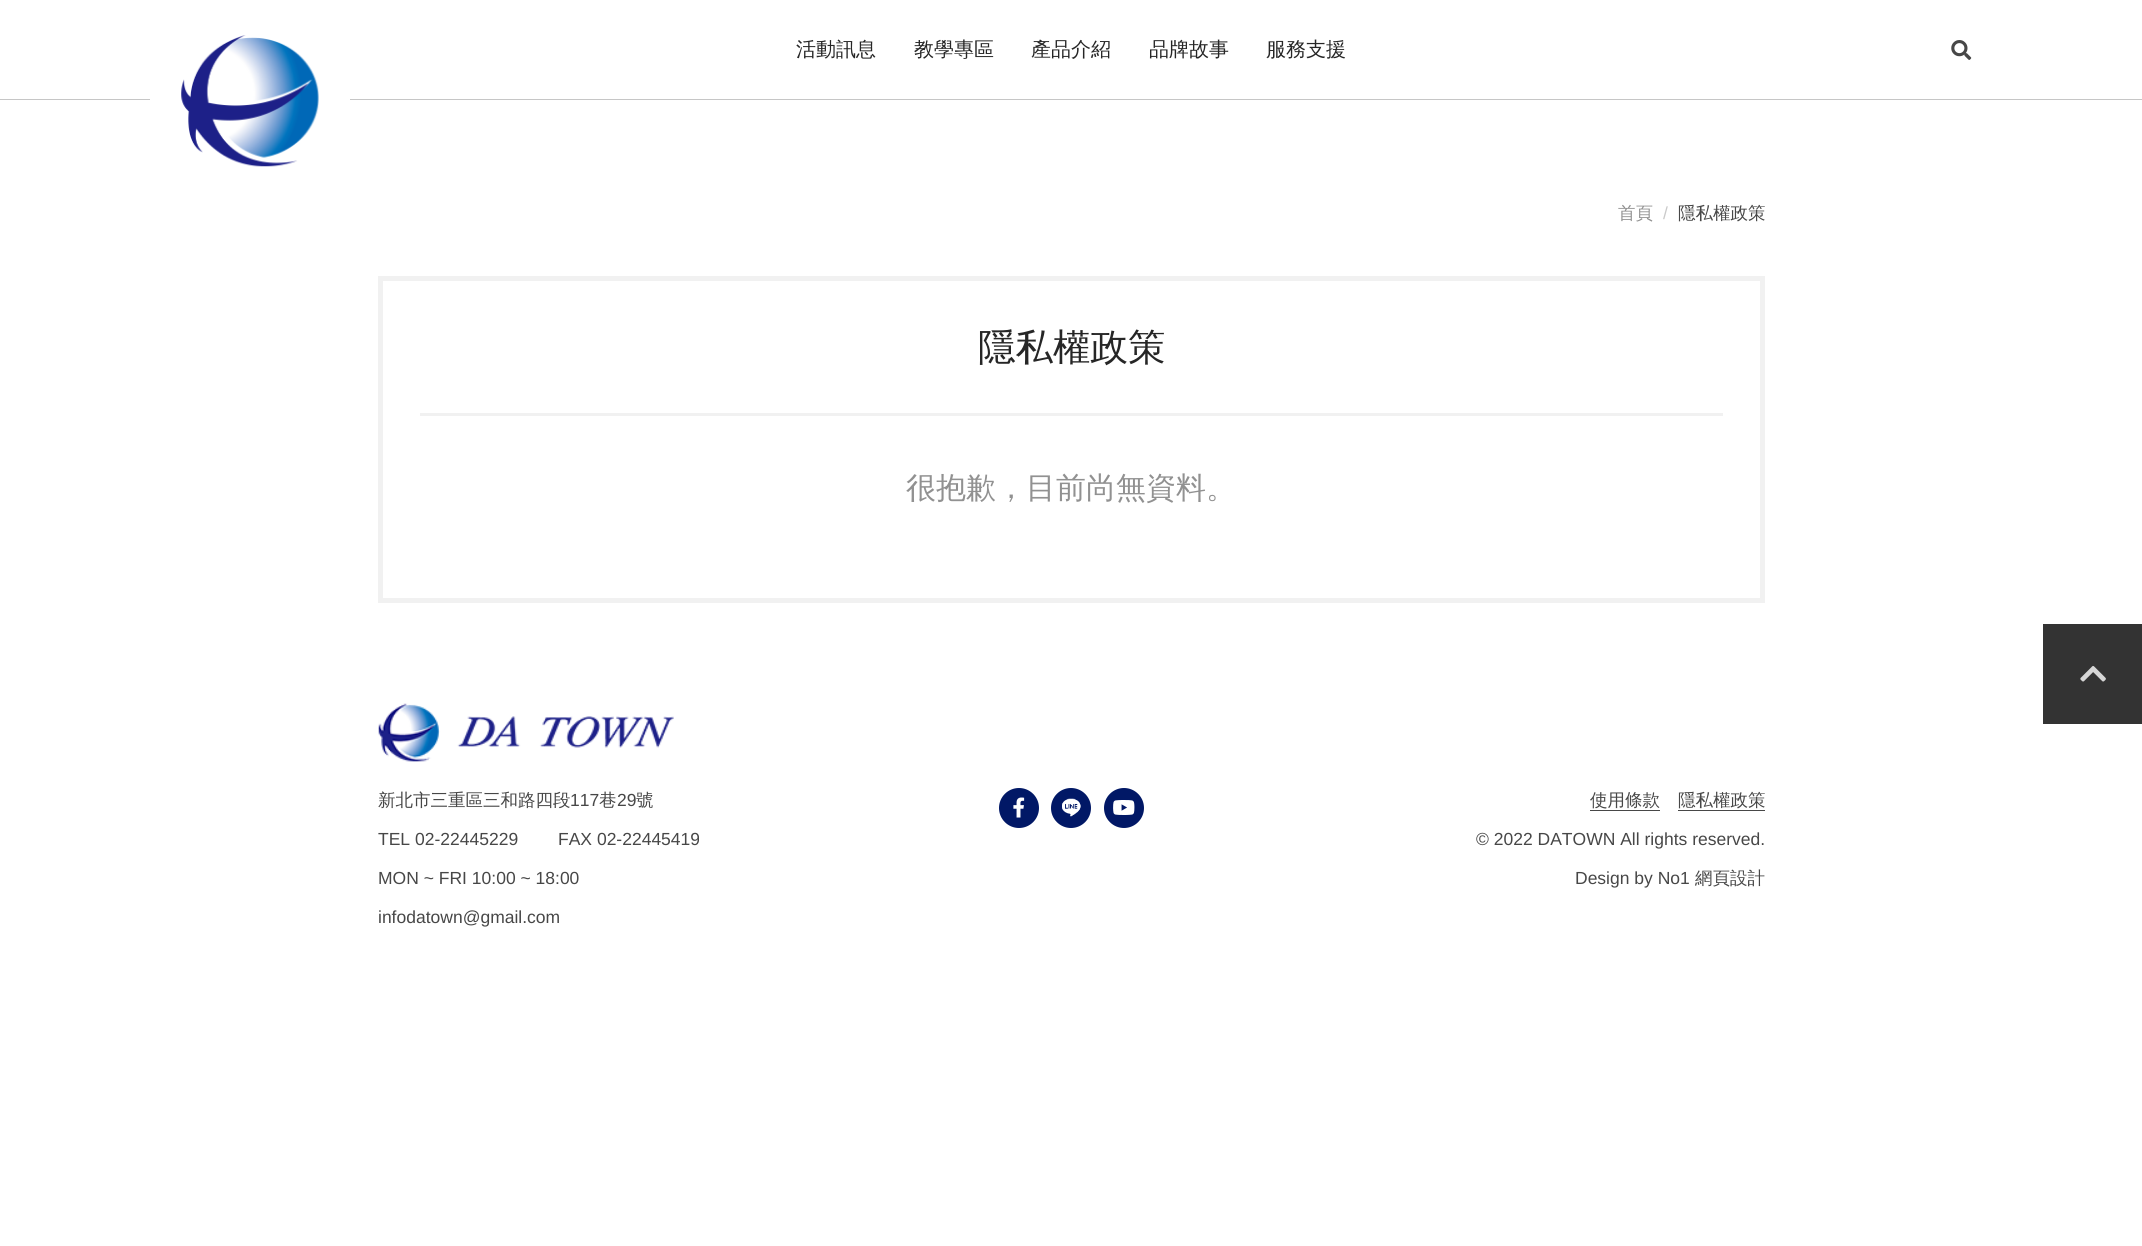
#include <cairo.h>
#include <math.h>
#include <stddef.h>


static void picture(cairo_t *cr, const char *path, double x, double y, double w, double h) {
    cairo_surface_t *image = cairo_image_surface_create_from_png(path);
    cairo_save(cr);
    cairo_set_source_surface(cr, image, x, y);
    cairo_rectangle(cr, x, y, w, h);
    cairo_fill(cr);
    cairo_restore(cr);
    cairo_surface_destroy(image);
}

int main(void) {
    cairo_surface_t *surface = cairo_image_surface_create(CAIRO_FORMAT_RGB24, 2142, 1246);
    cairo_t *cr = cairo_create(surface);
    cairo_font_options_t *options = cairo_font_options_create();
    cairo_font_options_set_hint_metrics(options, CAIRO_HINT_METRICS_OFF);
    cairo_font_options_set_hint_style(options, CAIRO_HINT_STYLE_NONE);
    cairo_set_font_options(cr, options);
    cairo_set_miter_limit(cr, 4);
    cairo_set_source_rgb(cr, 1, 1, 1);
    cairo_paint(cr);
    cairo_set_source_rgb(cr, 0.776, 0.776, 0.776);
    cairo_rectangle(cr, 0, 99, 2142, 1);
    cairo_fill(cr);
    cairo_set_source_rgb(cr, 1, 1, 1);
    cairo_rectangle(cr, 150, 99, 200, 1);
    cairo_fill(cr);
    picture(cr, "img1.png", 181, 35, 138, 132);
    cairo_select_font_face(cr, "WenQuanYi Zen Hei Medium", CAIRO_FONT_SLANT_NORMAL, CAIRO_FONT_WEIGHT_NORMAL);
    cairo_set_font_size(cr, 20);
    cairo_set_source_rgb(cr, 0.149, 0.149, 0.149);
    cairo_move_to(cr, 796, 56);
    cairo_show_text(cr, "活動訊息");
    cairo_move_to(cr, 914, 56);
    cairo_show_text(cr, "教學專區");
    cairo_move_to(cr, 1031, 56);
    cairo_show_text(cr, "產品介紹");
    cairo_move_to(cr, 1149, 56);
    cairo_show_text(cr, "品牌故事");
    cairo_move_to(cr, 1266, 56);
    cairo_show_text(cr, "服務支援");
    picture(cr, "img2.png", 1951, 40, 21, 20);
    cairo_set_font_size(cr, 17.5);
    cairo_set_source_rgb(cr, 0.569, 0.569, 0.569);
    cairo_move_to(cr, 1618, 219);
    cairo_show_text(cr, "首頁");
    cairo_select_font_face(cr, "Liberation Sans", CAIRO_FONT_SLANT_NORMAL, CAIRO_FONT_WEIGHT_NORMAL);
    cairo_set_source_rgb(cr, 0.792, 0.792, 0.792);
    cairo_move_to(cr, 1663, 219);
    cairo_show_text(cr, "/");
    cairo_select_font_face(cr, "WenQuanYi Zen Hei Medium", CAIRO_FONT_SLANT_NORMAL, CAIRO_FONT_WEIGHT_NORMAL);
    cairo_set_source_rgb(cr, 0.278, 0.278, 0.278);
    cairo_move_to(cr, 1678, 219);
    cairo_show_text(cr, "隱私權政策");
    cairo_rectangle(cr, 380.5, 278.5, 1382, 322);
    cairo_set_source_rgb(cr, 0.945, 0.945, 0.945);
    cairo_set_line_width(cr, 5);
    cairo_stroke(cr);
    cairo_rectangle(cr, 420, 413, 1303, 3);
    cairo_fill(cr);
    cairo_set_font_size(cr, 37.5);
    cairo_set_source_rgb(cr, 0.149, 0.149, 0.149);
    cairo_move_to(cr, 978, 360);
    cairo_show_text(cr, "隱私權政策");
    cairo_set_font_size(cr, 30);
    cairo_set_source_rgb(cr, 0.569, 0.569, 0.569);
    cairo_move_to(cr, 906, 498);
    cairo_show_text(cr, "很抱歉，目前尚無資料。");
    cairo_set_source_rgb(cr, 0.2, 0.2, 0.2);
    cairo_rectangle(cr, 2043, 624, 99, 100);
    cairo_fill(cr);
    picture(cr, "img3.png", 2080, 666, 26, 16);
    picture(cr, "img4.png", 378, 703, 296, 59);
    cairo_set_font_size(cr, 17.5);
    cairo_set_source_rgb(cr, 0.278, 0.278, 0.278);
    cairo_move_to(cr, 378, 806);
    cairo_show_text(cr, "新北市三重區三和路四段");
    cairo_select_font_face(cr, "Liberation Sans", CAIRO_FONT_SLANT_NORMAL, CAIRO_FONT_WEIGHT_NORMAL);
    cairo_move_to(cr, 570, 806);
    cairo_show_text(cr, "117");
    cairo_select_font_face(cr, "WenQuanYi Zen Hei Medium", CAIRO_FONT_SLANT_NORMAL, CAIRO_FONT_WEIGHT_NORMAL);
    cairo_move_to(cr, 599, 806);
    cairo_show_text(cr, "巷");
    cairo_select_font_face(cr, "Liberation Sans", CAIRO_FONT_SLANT_NORMAL, CAIRO_FONT_WEIGHT_NORMAL);
    cairo_move_to(cr, 617, 806);
    cairo_show_text(cr, "29");
    cairo_select_font_face(cr, "WenQuanYi Zen Hei Medium", CAIRO_FONT_SLANT_NORMAL, CAIRO_FONT_WEIGHT_NORMAL);
    cairo_move_to(cr, 636, 806);
    cairo_show_text(cr, "號");
    cairo_select_font_face(cr, "Liberation Sans", CAIRO_FONT_SLANT_NORMAL, CAIRO_FONT_WEIGHT_NORMAL);
    cairo_move_to(cr, 378, 845);
    cairo_show_text(cr, "TEL 02-22445229");
    cairo_move_to(cr, 558, 845);
    cairo_show_text(cr, "FAX 02-22445419");
    cairo_move_to(cr, 378, 884);
    cairo_show_text(cr, "MON ~ FRI 10:00 ~ 18:00");
    cairo_move_to(cr, 378, 923);
    cairo_show_text(cr, "infodatown@gmail.com");
    cairo_set_source_rgb(cr, 0.004, 0.094, 0.4);
    cairo_new_path(cr);
    cairo_arc(cr, 1019, 808, 20, 0, 2 * M_PI);
    cairo_fill(cr);
    picture(cr, "img5.png", 1013, 797, 12, 21);
    cairo_arc(cr, 1071, 808, 20, 0, 2 * M_PI);
    cairo_fill(cr);
    picture(cr, "img6.png", 1062, 798, 19, 19);
    cairo_arc(cr, 1124, 808, 20, 0, 2 * M_PI);
    cairo_fill(cr);
    picture(cr, "img7.png", 1113, 800, 22, 15);
    cairo_select_font_face(cr, "WenQuanYi Zen Hei Medium", CAIRO_FONT_SLANT_NORMAL, CAIRO_FONT_WEIGHT_NORMAL);
    cairo_set_source_rgb(cr, 0.278, 0.278, 0.278);
    cairo_move_to(cr, 1590, 806);
    cairo_show_text(cr, "使用條款");
    cairo_rectangle(cr, 1590, 810, 70, 1);
    cairo_fill(cr);
    cairo_move_to(cr, 1678, 806);
    cairo_show_text(cr, "隱私權政策");
    cairo_rectangle(cr, 1678, 810, 87, 1);
    cairo_fill(cr);
    cairo_select_font_face(cr, "Liberation Sans", CAIRO_FONT_SLANT_NORMAL, CAIRO_FONT_WEIGHT_NORMAL);
    cairo_move_to(cr, 1476, 845);
    cairo_show_text(cr, "© 2022 DATOWN All rights reserved.");
    cairo_move_to(cr, 1575, 884);
    cairo_show_text(cr, "Design by No1");
    cairo_select_font_face(cr, "WenQuanYi Zen Hei Medium", CAIRO_FONT_SLANT_NORMAL, CAIRO_FONT_WEIGHT_NORMAL);
    cairo_move_to(cr, 1695, 884);
    cairo_show_text(cr, "網頁設計");
    cairo_surface_write_to_png(surface, "page.png");
    cairo_font_options_destroy(options);
    cairo_destroy(cr);
    cairo_surface_destroy(surface);
    return 0;
}
